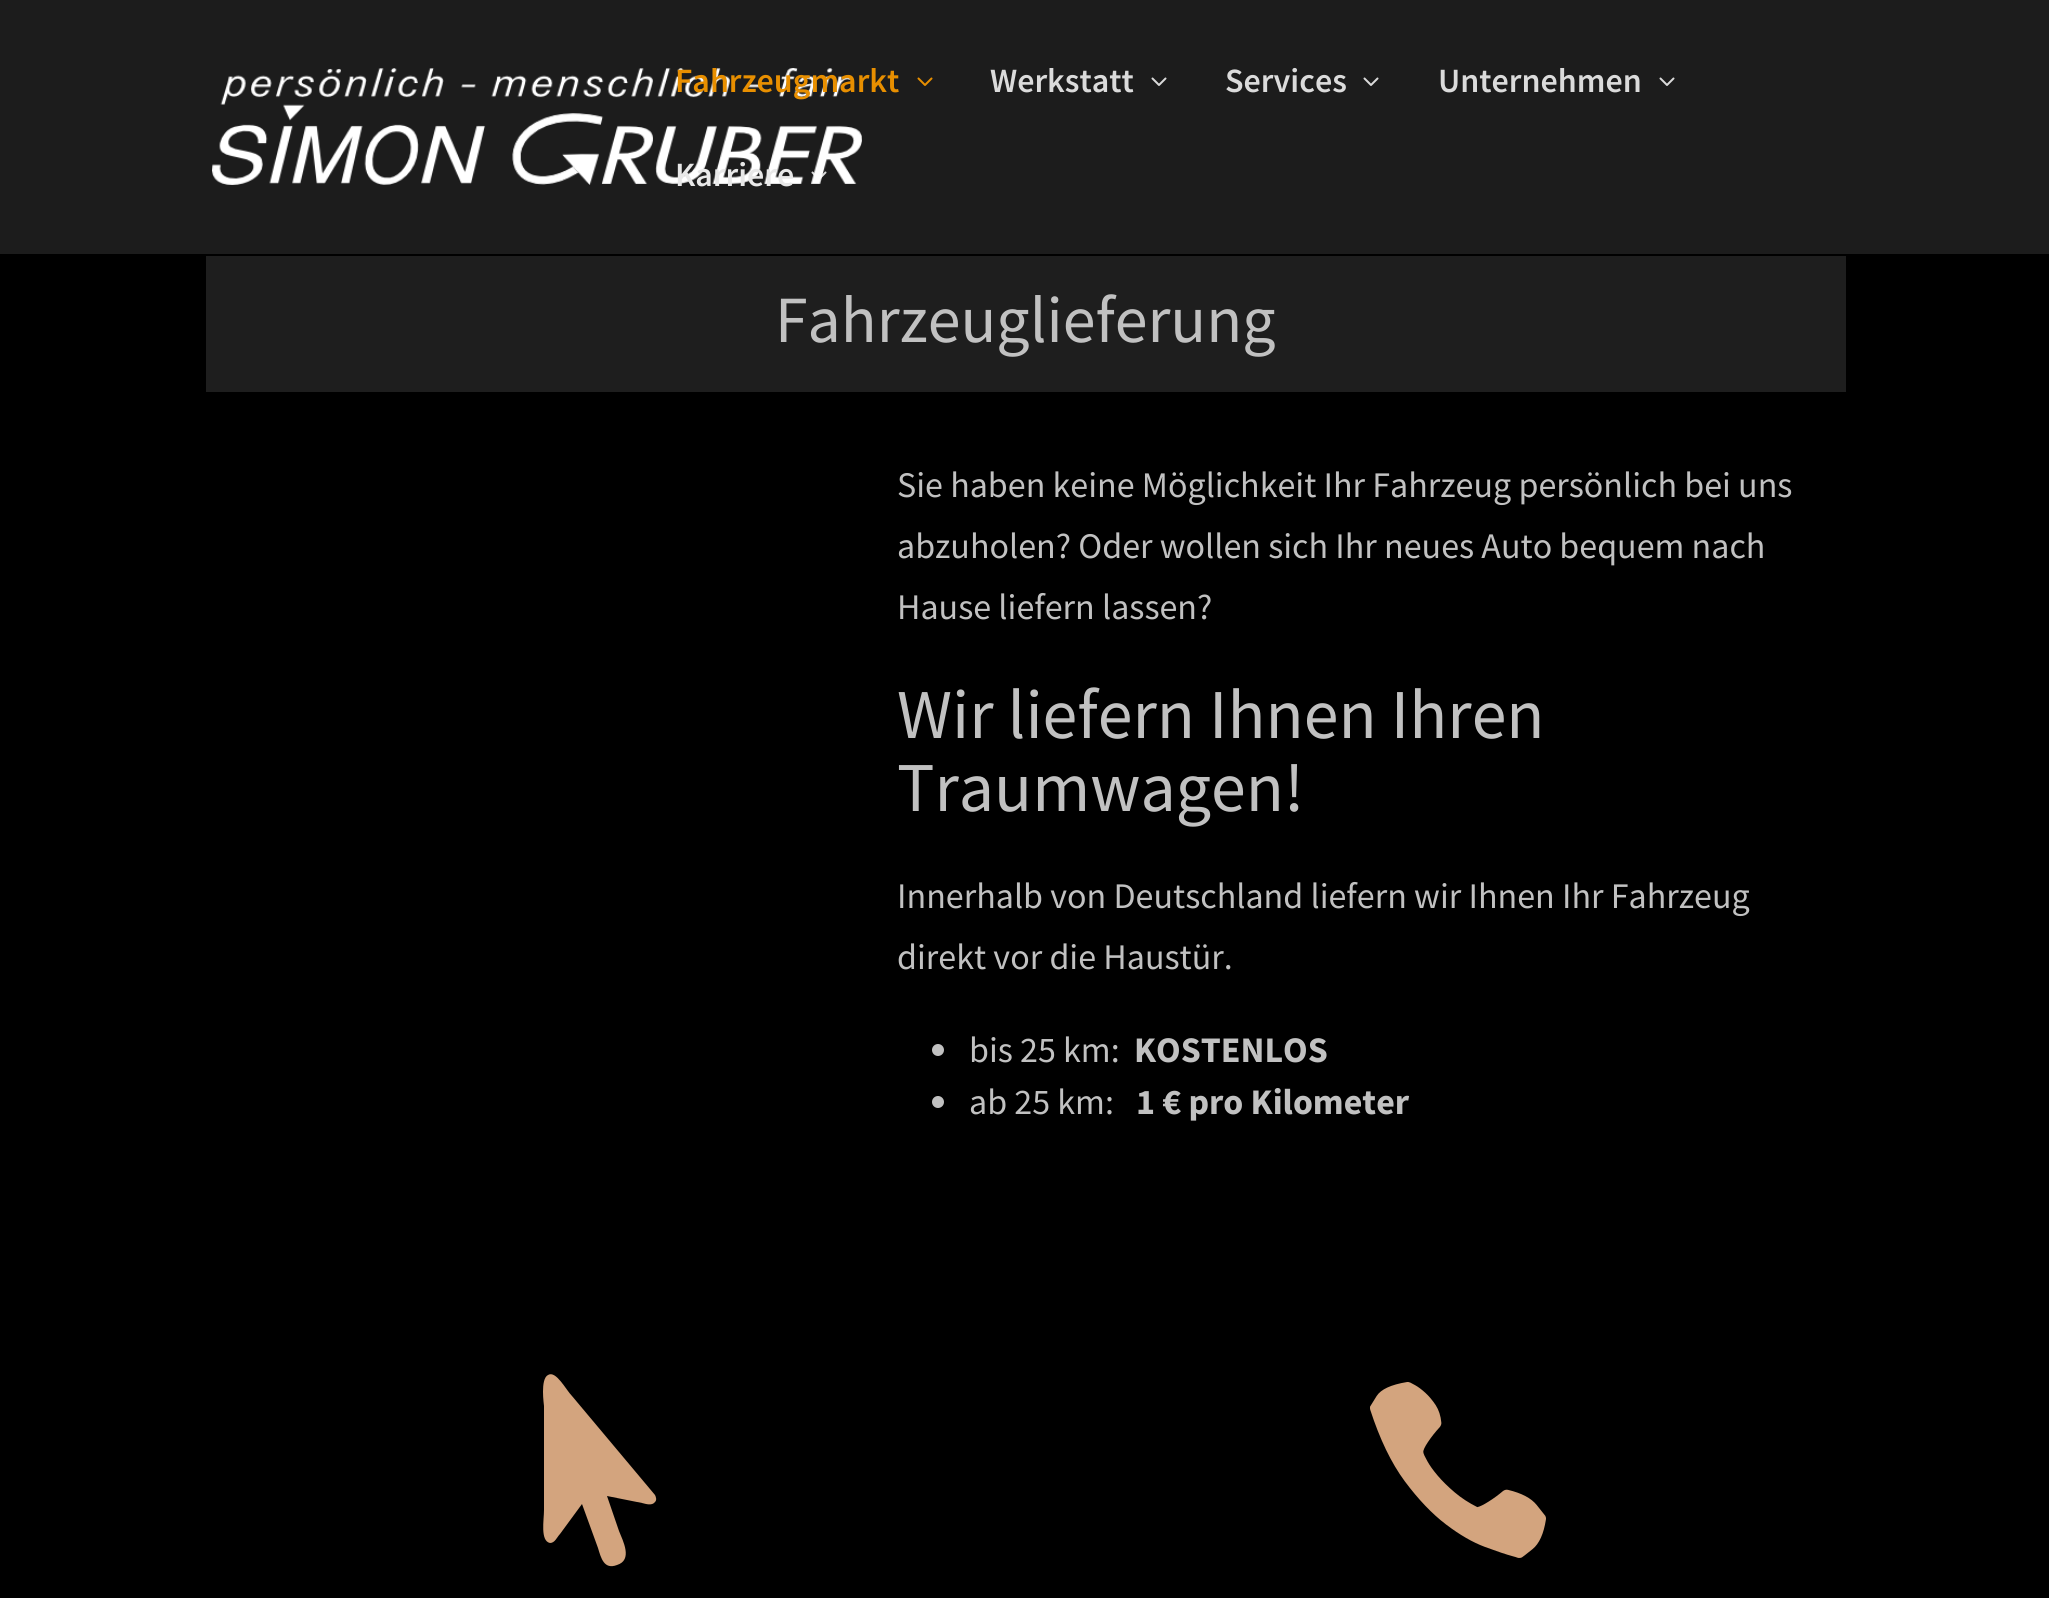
#include <cairo.h>
#include <math.h>
#include <stddef.h>


static void picture(cairo_t *cr, const char *path, double x, double y, double w, double h) {
    cairo_surface_t *image = cairo_image_surface_create_from_png(path);
    cairo_save(cr);
    cairo_set_source_surface(cr, image, x, y);
    cairo_rectangle(cr, x, y, w, h);
    cairo_fill(cr);
    cairo_restore(cr);
    cairo_surface_destroy(image);
}

int main(void) {
    cairo_surface_t *surface = cairo_image_surface_create(CAIRO_FORMAT_RGB24, 2049, 1598);
    cairo_t *cr = cairo_create(surface);
    cairo_font_options_t *options = cairo_font_options_create();
    cairo_font_options_set_hint_metrics(options, CAIRO_HINT_METRICS_OFF);
    cairo_font_options_set_hint_style(options, CAIRO_HINT_STYLE_NONE);
    cairo_set_font_options(cr, options);
    cairo_set_miter_limit(cr, 4);
    cairo_set_source_rgb(cr, 0, 0, 0);
    cairo_paint(cr);
    cairo_set_source_rgb(cr, 0.11, 0.11, 0.11);
    cairo_rectangle(cr, 0, 0, 2049, 254);
    cairo_fill(cr);
    picture(cr, "img1.png", 212, 68, 650, 117);
    cairo_select_font_face(cr, "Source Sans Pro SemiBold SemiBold", CAIRO_FONT_SLANT_NORMAL, CAIRO_FONT_WEIGHT_NORMAL);
    cairo_set_font_size(cr, 34);
    cairo_set_source_rgb(cr, 0.91, 0.561, 0);
    cairo_move_to(cr, 675, 92);
    cairo_show_text(cr, "Fahrzeugmarkt");
    picture(cr, "img2.png", 917, 77, 16, 9);
    cairo_set_source_rgb(cr, 0.859, 0.859, 0.859);
    cairo_move_to(cr, 990, 92);
    cairo_show_text(cr, "Werkstatt");
    picture(cr, "img3.png", 1151, 77, 16, 9);
    cairo_move_to(cr, 1225, 92);
    cairo_show_text(cr, "Services");
    picture(cr, "img3.png", 1363, 77, 16, 9);
    cairo_move_to(cr, 1438, 92);
    cairo_show_text(cr, "Unternehmen");
    picture(cr, "img3.png", 1659, 77, 16, 9);
    cairo_set_source_rgb(cr, 0.91, 0.91, 0.91);
    cairo_move_to(cr, 675, 186);
    cairo_show_text(cr, "Karriere");
    picture(cr, "img4.png", 811, 171, 16, 8);
    cairo_set_source_rgb(cr, 0.118, 0.118, 0.118);
    cairo_rectangle(cr, 206, 256, 1640, 136);
    cairo_fill(cr);
    cairo_select_font_face(cr, "Source Sans Pro", CAIRO_FONT_SLANT_NORMAL, CAIRO_FONT_WEIGHT_NORMAL);
    cairo_set_font_size(cr, 66);
    cairo_set_source_rgb(cr, 0.757, 0.757, 0.757);
    cairo_move_to(cr, 775, 342);
    cairo_show_text(cr, "Fahrzeuglieferung");
    cairo_set_font_size(cr, 36);
    cairo_move_to(cr, 897, 497);
    cairo_show_text(cr, "Sie haben keine Möglichkeit Ihr Fahrzeug persönlich bei uns");
    cairo_move_to(cr, 897, 558);
    cairo_show_text(cr, "abzuholen? Oder wollen sich Ihr neues Auto bequem nach");
    cairo_move_to(cr, 897, 619);
    cairo_show_text(cr, "Hause liefern lassen?");
    cairo_set_font_size(cr, 70);
    cairo_move_to(cr, 897, 738);
    cairo_show_text(cr, "Wir liefern Ihnen Ihren");
    cairo_move_to(cr, 897, 811);
    cairo_show_text(cr, "Traumwagen!");
    cairo_set_font_size(cr, 36);
    cairo_move_to(cr, 897, 908);
    cairo_show_text(cr, "Innerhalb von Deutschland liefern wir Ihnen Ihr Fahrzeug");
    cairo_move_to(cr, 897, 969);
    cairo_show_text(cr, "direkt vor die Haustür.");
    cairo_new_path(cr);
    cairo_arc(cr, 938, 1050, 6, 0, 2 * M_PI);
    cairo_fill(cr);
    cairo_move_to(cr, 969, 1062);
    cairo_show_text(cr, "bis 25 km:");
    cairo_select_font_face(cr, "Source Sans Pro", CAIRO_FONT_SLANT_NORMAL, CAIRO_FONT_WEIGHT_BOLD);
    cairo_move_to(cr, 1134, 1062);
    cairo_show_text(cr, "KOSTENLOS");
    cairo_new_path(cr);
    cairo_arc(cr, 938, 1102, 6, 0, 2 * M_PI);
    cairo_fill(cr);
    cairo_select_font_face(cr, "Source Sans Pro", CAIRO_FONT_SLANT_NORMAL, CAIRO_FONT_WEIGHT_NORMAL);
    cairo_move_to(cr, 969, 1114);
    cairo_show_text(cr, "ab 25 km:");
    cairo_select_font_face(cr, "Source Sans Pro", CAIRO_FONT_SLANT_NORMAL, CAIRO_FONT_WEIGHT_BOLD);
    cairo_move_to(cr, 1136, 1114);
    cairo_show_text(cr, "1 € pro Kilometer");
    cairo_set_source_rgb(cr, 0.827, 0.643, 0.494);
    cairo_new_path(cr);
    cairo_move_to(cr, 655, 1502);
    cairo_curve_to(cr, 657, 1500, 656, 1497, 655, 1495);
    cairo_line_to(cr, 572, 1396);
    cairo_curve_to(cr, 566, 1390, 556, 1370, 548, 1375);
    cairo_curve_to(cr, 540, 1379, 544, 1405, 544, 1406);
    cairo_line_to(cr, 544, 1510);
    cairo_curve_to(cr, 544, 1520, 540, 1541, 550, 1543);
    cairo_curve_to(cr, 555, 1543, 557, 1537, 560, 1534);
    cairo_line_to(cr, 582, 1504);
    cairo_line_to(cr, 598, 1548);
    cairo_curve_to(cr, 601, 1558, 604, 1570, 617, 1565);
    cairo_curve_to(cr, 633, 1560, 623, 1541, 619, 1531);
    cairo_line_to(cr, 607, 1496);
    cairo_line_to(cr, 642, 1503);
    cairo_curve_to(cr, 646, 1504, 652, 1506, 655, 1502);
    cairo_close_path(cr);
    cairo_fill(cr);
    picture(cr, "img5.png", 1370, 1382, 176, 176);
    cairo_surface_write_to_png(surface, "page.png");
    cairo_font_options_destroy(options);
    cairo_destroy(cr);
    cairo_surface_destroy(surface);
    return 0;
}
